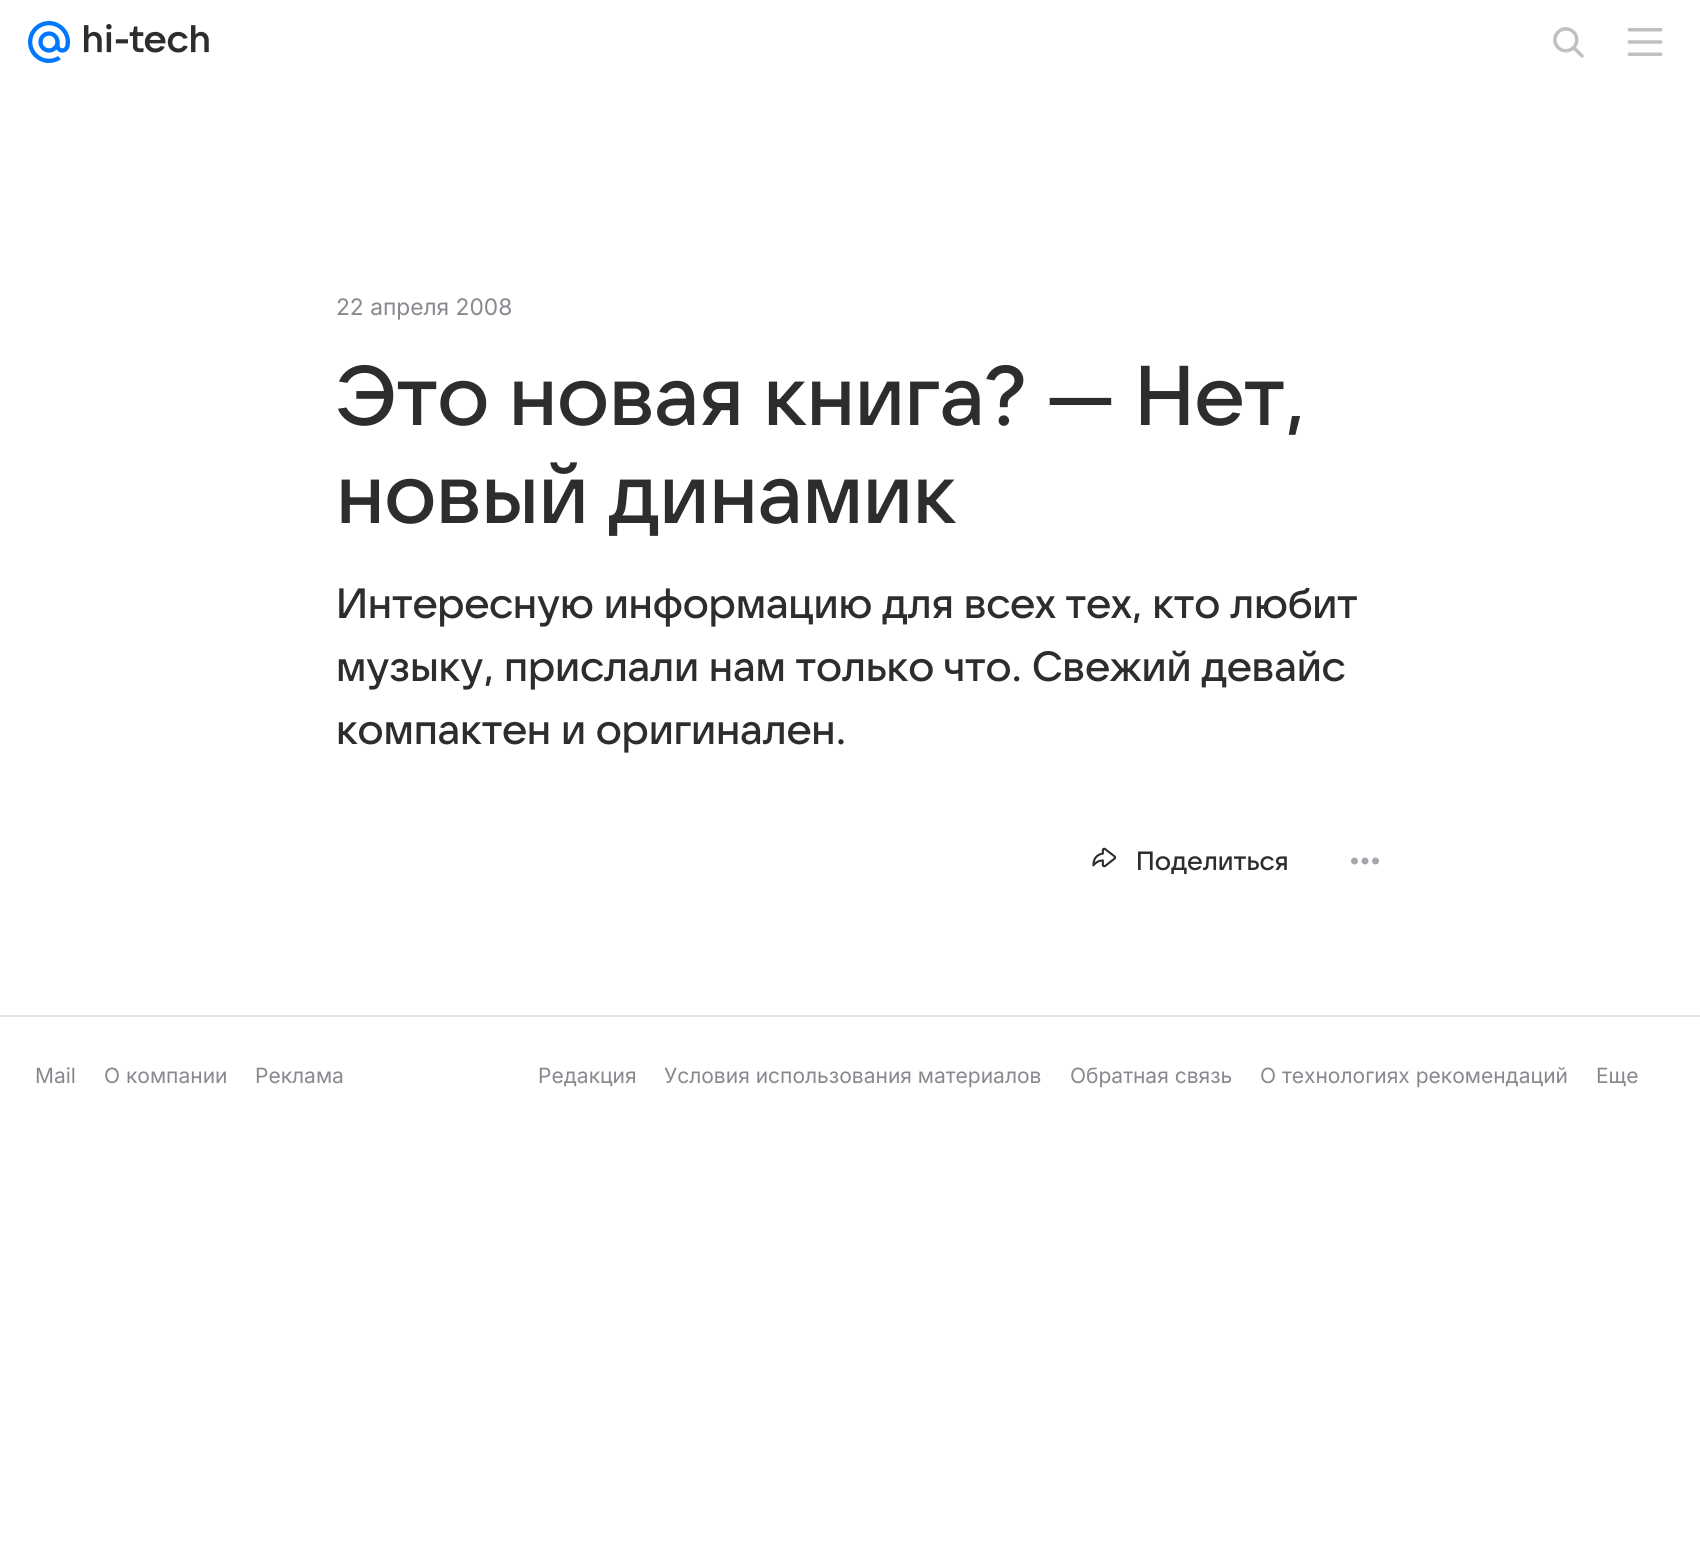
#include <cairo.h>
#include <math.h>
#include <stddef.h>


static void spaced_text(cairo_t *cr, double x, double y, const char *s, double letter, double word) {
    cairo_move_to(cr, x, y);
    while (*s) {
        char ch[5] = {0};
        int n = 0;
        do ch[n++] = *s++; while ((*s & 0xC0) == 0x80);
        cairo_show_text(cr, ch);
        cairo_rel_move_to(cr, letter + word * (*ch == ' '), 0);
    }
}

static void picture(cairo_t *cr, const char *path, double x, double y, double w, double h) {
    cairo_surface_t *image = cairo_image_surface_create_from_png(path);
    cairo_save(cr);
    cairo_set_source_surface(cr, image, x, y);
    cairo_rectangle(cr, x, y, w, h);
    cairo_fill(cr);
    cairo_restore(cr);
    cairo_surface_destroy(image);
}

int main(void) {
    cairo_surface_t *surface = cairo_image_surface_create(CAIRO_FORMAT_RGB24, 1700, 1567);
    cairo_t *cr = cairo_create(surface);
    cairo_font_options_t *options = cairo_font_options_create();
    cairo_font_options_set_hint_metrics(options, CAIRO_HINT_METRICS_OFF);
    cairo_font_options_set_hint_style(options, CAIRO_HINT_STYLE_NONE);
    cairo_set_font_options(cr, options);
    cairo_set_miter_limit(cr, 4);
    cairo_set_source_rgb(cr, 1, 1, 1);
    cairo_paint(cr);
    picture(cr, "img1.png", 28, 21, 42, 42);
    picture(cr, "img2.png", 84, 24, 125, 29);
    picture(cr, "img3.png", 1553, 27, 31, 31);
    picture(cr, "img4.png", 1627, 28, 36, 28);
    cairo_select_font_face(cr, "Inter", CAIRO_FONT_SLANT_NORMAL, CAIRO_FONT_WEIGHT_NORMAL);
    cairo_set_font_size(cr, 22.75);
    cairo_set_source_rgb(cr, 0.529, 0.537, 0.561);
    cairo_move_to(cr, 336, 315);
    cairo_show_text(cr, "22 апреля 2008");
    cairo_select_font_face(cr, "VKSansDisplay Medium", CAIRO_FONT_SLANT_NORMAL, CAIRO_FONT_WEIGHT_NORMAL);
    cairo_set_font_size(cr, 84);
    cairo_set_source_rgb(cr, 0.173, 0.176, 0.18);
    spaced_text(cr, 336, 425, "Это новая книга? — Нет,", -0.4, 0);
    spaced_text(cr, 336, 523, "новый динамик", -0.4, 0);
    cairo_set_font_size(cr, 42);
    spaced_text(cr, 336, 618, "Интересную информацию для всех тех, кто любит", -0.2, 0);
    spaced_text(cr, 336, 681, "музыку, прислали нам только что. Свежий девайс", -0.2, 0);
    spaced_text(cr, 336, 744, "компактен и оригинален.", -0.2, 0);
    picture(cr, "img5.png", 1092, 847, 25, 21);
    cairo_set_font_size(cr, 26.25);
    cairo_move_to(cr, 1136, 870);
    cairo_show_text(cr, "Поделиться");
    picture(cr, "img6.png", 1351, 857, 28, 8);
    cairo_set_source_rgb(cr, 0.878, 0.886, 0.91);
    cairo_rectangle(cr, 0, 1015, 1700, 2);
    cairo_fill(cr);
    cairo_select_font_face(cr, "Inter", CAIRO_FONT_SLANT_NORMAL, CAIRO_FONT_WEIGHT_NORMAL);
    cairo_set_font_size(cr, 21);
    cairo_set_source_rgb(cr, 0.529, 0.537, 0.561);
    cairo_move_to(cr, 35, 1083);
    cairo_show_text(cr, "Mail");
    cairo_move_to(cr, 104, 1083);
    cairo_show_text(cr, "О компании");
    cairo_move_to(cr, 255, 1083);
    cairo_show_text(cr, "Реклама");
    cairo_move_to(cr, 538, 1083);
    cairo_show_text(cr, "Редакция");
    cairo_move_to(cr, 664, 1083);
    cairo_show_text(cr, "Условия использования материалов");
    cairo_move_to(cr, 1070, 1083);
    cairo_show_text(cr, "Обратная связь");
    cairo_move_to(cr, 1260, 1083);
    cairo_show_text(cr, "О технологиях рекомендаций");
    cairo_move_to(cr, 1596, 1083);
    cairo_show_text(cr, "Еще");
    cairo_surface_write_to_png(surface, "page.png");
    cairo_font_options_destroy(options);
    cairo_destroy(cr);
    cairo_surface_destroy(surface);
    return 0;
}
